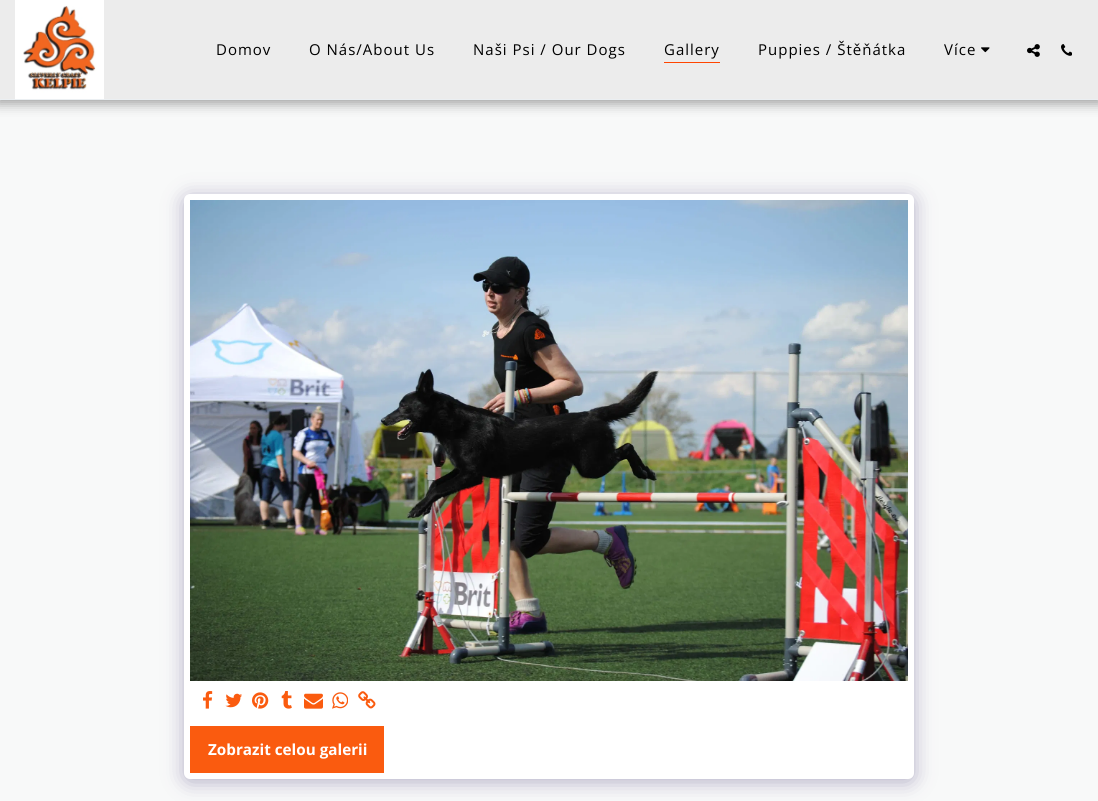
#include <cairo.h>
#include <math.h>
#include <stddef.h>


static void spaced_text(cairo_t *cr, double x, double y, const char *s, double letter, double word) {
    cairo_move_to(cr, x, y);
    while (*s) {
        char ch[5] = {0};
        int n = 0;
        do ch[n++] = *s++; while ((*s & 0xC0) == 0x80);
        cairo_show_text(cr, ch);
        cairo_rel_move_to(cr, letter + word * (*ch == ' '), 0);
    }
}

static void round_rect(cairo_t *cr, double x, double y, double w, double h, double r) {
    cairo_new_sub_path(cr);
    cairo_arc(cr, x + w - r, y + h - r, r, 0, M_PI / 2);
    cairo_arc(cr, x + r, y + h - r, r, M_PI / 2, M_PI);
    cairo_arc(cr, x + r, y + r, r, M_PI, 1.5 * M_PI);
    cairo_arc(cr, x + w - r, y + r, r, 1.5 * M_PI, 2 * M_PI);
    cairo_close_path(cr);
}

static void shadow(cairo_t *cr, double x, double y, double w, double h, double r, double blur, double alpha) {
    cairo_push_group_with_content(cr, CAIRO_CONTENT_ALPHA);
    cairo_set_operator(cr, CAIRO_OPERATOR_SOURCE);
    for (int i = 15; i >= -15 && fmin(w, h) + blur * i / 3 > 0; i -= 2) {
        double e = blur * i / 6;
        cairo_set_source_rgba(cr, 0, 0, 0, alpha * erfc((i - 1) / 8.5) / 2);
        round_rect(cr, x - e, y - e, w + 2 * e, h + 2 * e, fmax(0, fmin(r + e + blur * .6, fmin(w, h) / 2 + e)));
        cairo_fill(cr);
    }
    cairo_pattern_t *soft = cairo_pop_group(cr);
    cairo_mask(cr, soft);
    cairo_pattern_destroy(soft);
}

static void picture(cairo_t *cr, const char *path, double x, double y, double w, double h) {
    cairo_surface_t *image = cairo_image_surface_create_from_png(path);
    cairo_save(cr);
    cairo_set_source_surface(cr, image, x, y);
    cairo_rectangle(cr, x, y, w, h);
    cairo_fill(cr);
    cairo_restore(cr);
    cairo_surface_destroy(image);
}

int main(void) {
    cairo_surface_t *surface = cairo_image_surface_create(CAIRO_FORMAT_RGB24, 1098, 801);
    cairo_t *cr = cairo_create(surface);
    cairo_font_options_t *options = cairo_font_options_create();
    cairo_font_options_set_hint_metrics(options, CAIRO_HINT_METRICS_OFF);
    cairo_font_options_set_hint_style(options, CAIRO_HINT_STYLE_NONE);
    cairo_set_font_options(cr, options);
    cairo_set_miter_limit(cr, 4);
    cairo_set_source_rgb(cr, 0.969, 0.976, 0.973);
    cairo_paint(cr);
    cairo_set_source_rgb(cr, 0, 0, 0);
    shadow(cr, -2, 0, 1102, 104, 0, 6, 0.35);
    cairo_set_source_rgb(cr, 0.922, 0.922, 0.922);
    cairo_rectangle(cr, 0, 0, 1098, 99);
    cairo_fill(cr);
    cairo_set_source_rgb(cr, 0.918, 0.937, 0.949);
    cairo_rectangle(cr, 0, 99, 1098, 1);
    cairo_fill(cr);
    picture(cr, "img1.png", 15, 0, 89, 99);
    cairo_select_font_face(cr, "Open Sans", CAIRO_FONT_SLANT_NORMAL, CAIRO_FONT_WEIGHT_NORMAL);
    cairo_set_font_size(cr, 15);
    cairo_set_source_rgb(cr, 0, 0, 0);
    spaced_text(cr, 216, 55, "Domov", 1, 0);
    spaced_text(cr, 309, 55, "O Nás/About Us", 1, 0);
    spaced_text(cr, 473, 55, "Naši Psi / Our Dogs", 1, 0);
    spaced_text(cr, 664, 55, "Gallery", 1, 0);
    cairo_set_source_rgb(cr, 1, 0.271, 0);
    cairo_rectangle(cr, 664, 62, 56, 1);
    cairo_fill(cr);
    cairo_set_source_rgb(cr, 0, 0, 0);
    spaced_text(cr, 758, 55, "Puppies / Štěňátka", 1, 0);
    spaced_text(cr, 944, 55, "Více", 1, 0);
    picture(cr, "img2.png", 981, 47, 9, 6);
    picture(cr, "img3.png", 1027, 44, 13, 13);
    picture(cr, "img4.png", 1061, 44, 11, 12);
    cairo_set_source_rgb(cr, 0.302, 0.247, 0.478);
    shadow(cr, 184, 197, 730, 585, 6, 10, 0.4);
    cairo_set_source_rgb(cr, 1, 1, 1);
    round_rect(cr, 184, 194, 730, 585, 6);
    cairo_fill(cr);
    picture(cr, "img5.png", 190, 200, 718, 481);
    picture(cr, "img6.png", 203, 691, 10, 18);
    picture(cr, "img7.png", 225, 693, 17, 15);
    picture(cr, "img8.png", 252, 692, 17, 17);
    picture(cr, "img9.png", 281, 691, 11, 18);
    picture(cr, "img10.png", 304, 693, 19, 16);
    picture(cr, "img11.png", 332, 692, 16, 17);
    picture(cr, "img12.png", 358, 691, 18, 18);
    cairo_set_source_rgb(cr, 0.98, 0.357, 0.059);
    cairo_rectangle(cr, 190, 726, 194, 47);
    cairo_fill(cr);
    cairo_select_font_face(cr, "Open Sans", CAIRO_FONT_SLANT_NORMAL, CAIRO_FONT_WEIGHT_BOLD);
    cairo_set_font_size(cr, 15.25);
    cairo_set_source_rgb(cr, 1, 1, 1);
    cairo_move_to(cr, 208, 755);
    cairo_show_text(cr, "Zobrazit celou galerii");
    cairo_surface_write_to_png(surface, "page.png");
    cairo_font_options_destroy(options);
    cairo_destroy(cr);
    cairo_surface_destroy(surface);
    return 0;
}
